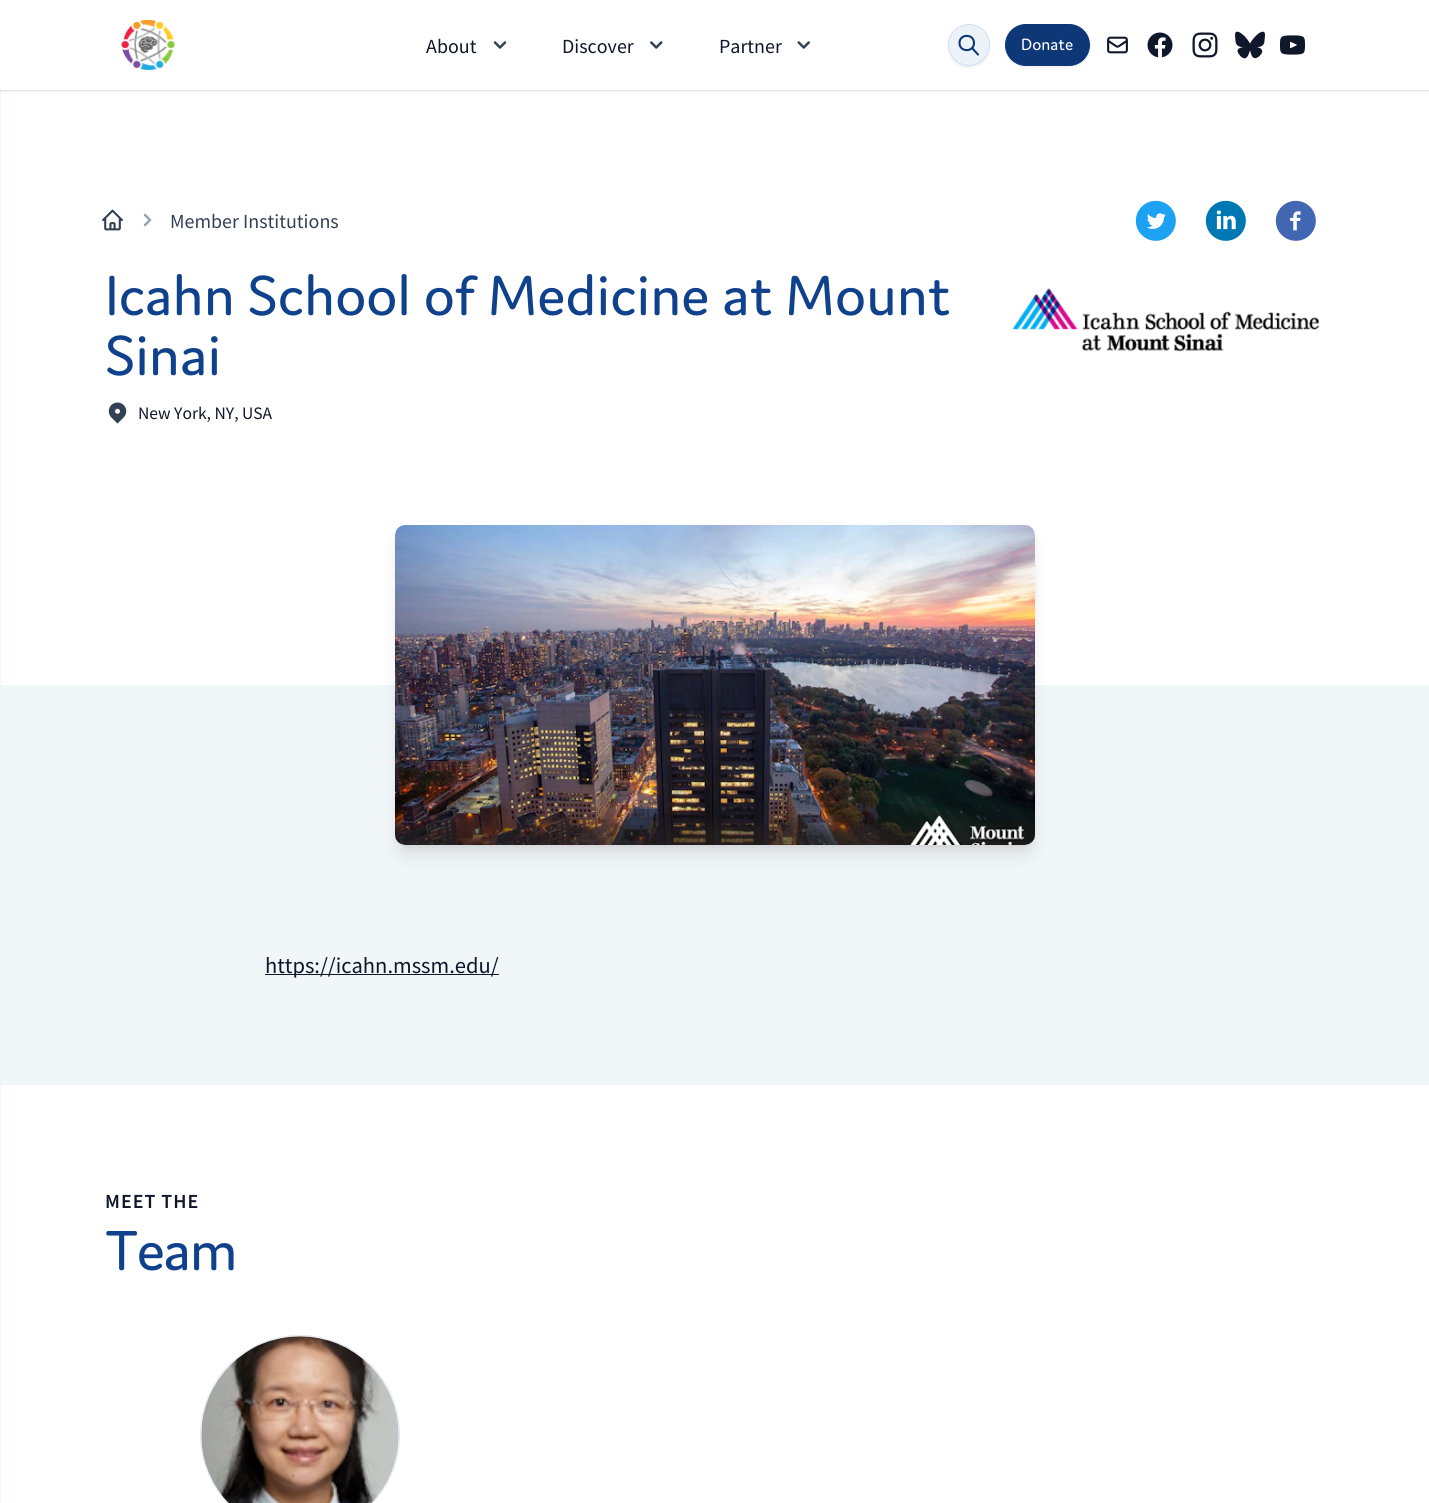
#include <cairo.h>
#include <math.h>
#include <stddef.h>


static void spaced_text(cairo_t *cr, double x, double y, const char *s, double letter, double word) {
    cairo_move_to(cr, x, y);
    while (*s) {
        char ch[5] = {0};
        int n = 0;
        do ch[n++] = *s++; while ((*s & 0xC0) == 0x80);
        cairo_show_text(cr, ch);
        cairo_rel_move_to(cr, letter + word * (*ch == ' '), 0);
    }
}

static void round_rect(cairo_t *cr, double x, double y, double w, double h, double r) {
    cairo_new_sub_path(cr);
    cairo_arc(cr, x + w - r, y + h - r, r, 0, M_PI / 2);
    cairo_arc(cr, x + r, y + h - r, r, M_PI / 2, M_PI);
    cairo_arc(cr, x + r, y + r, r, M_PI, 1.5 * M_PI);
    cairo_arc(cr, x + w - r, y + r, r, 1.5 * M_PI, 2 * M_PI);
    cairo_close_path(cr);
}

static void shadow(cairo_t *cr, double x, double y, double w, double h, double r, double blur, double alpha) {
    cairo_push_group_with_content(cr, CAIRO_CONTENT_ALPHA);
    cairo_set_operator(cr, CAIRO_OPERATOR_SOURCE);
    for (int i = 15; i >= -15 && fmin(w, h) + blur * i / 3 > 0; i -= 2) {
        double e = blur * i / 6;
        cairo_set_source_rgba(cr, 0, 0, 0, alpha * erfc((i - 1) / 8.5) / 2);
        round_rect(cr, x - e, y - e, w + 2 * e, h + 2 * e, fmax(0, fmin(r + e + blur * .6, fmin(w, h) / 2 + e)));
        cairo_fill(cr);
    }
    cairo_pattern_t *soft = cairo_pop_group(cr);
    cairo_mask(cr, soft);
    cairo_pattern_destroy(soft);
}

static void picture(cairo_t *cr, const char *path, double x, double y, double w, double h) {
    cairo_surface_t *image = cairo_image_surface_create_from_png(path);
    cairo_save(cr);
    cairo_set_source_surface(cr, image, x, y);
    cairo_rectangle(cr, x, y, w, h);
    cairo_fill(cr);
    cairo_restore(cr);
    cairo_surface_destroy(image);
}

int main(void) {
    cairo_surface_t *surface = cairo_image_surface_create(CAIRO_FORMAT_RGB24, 1429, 1503);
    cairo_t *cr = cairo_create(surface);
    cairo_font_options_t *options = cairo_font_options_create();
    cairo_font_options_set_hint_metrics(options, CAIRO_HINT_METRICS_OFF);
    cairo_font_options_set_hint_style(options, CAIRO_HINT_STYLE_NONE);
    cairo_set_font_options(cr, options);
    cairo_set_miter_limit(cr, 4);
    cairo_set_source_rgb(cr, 1, 1, 1);
    cairo_paint(cr);
    cairo_set_source_rgb(cr, 0.945, 0.961, 0.976);
    cairo_rectangle(cr, 0, 90, 1, 1413);
    cairo_fill(cr);
    cairo_save(cr);
    cairo_rectangle(cr, 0, 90, 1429, 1);
    cairo_clip(cr);
    cairo_set_source_rgb(cr, 0, 0, 0);
    shadow(cr, 0, 1, 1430, 90, 0, 1, 0.06);
    cairo_restore(cr);
    cairo_save(cr);
    cairo_rectangle(cr, 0, 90, 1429, 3);
    cairo_clip(cr);
    cairo_set_source_rgb(cr, 0, 0, 0);
    shadow(cr, 0, 1, 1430, 90, 0, 2, 0.1);
    cairo_restore(cr);
    picture(cr, "img1.png", 121, 20, 55, 50);
    cairo_select_font_face(cr, "Source Sans Pro", CAIRO_FONT_SLANT_NORMAL, CAIRO_FONT_WEIGHT_NORMAL);
    cairo_set_font_size(cr, 20);
    cairo_set_source_rgb(cr, 0.059, 0.09, 0.165);
    cairo_move_to(cr, 426, 53);
    cairo_show_text(cr, "About");
    picture(cr, "img2.png", 493, 41, 14, 8);
    cairo_move_to(cr, 562, 53);
    cairo_show_text(cr, "Discover");
    picture(cr, "img3.png", 650, 41, 13, 8);
    cairo_move_to(cr, 719, 53);
    cairo_show_text(cr, "Partner");
    picture(cr, "img4.png", 797, 41, 13, 8);
    cairo_set_source_rgb(cr, 0, 0, 0);
    shadow(cr, 948, 25, 42, 43, 21, 1, 0.05);
    cairo_set_source_rgb(cr, 0.929, 0.949, 0.976);
    cairo_arc(cr, 969, 45, 20.5, 0, 2 * M_PI);
    cairo_fill_preserve(cr);
    cairo_set_source_rgb(cr, 0.824, 0.871, 0.937);
    cairo_set_line_width(cr, 1);
    cairo_stroke(cr);
    cairo_new_path(cr);
    cairo_move_to(cr, 978, 54.5);
    cairo_line_to(cr, 972, 48);
    cairo_move_to(cr, 974, 43);
    cairo_curve_to(cr, 974, 52.5, 959.5, 52.5, 959.5, 43);
    cairo_curve_to(cr, 959.5, 33.5, 974, 33.5, 974, 43);
    cairo_close_path(cr);
    cairo_set_source_rgb(cr, 0.051, 0.216, 0.467);
    cairo_set_line_width(cr, 2.1);
    cairo_set_line_cap(cr, CAIRO_LINE_CAP_ROUND);
    cairo_set_line_join(cr, CAIRO_LINE_JOIN_ROUND);
    cairo_stroke(cr);
    cairo_set_source_rgb(cr, 0, 0, 0);
    shadow(cr, 1005, 25, 85, 43, 21.5, 1, 0.05);
    cairo_set_source_rgb(cr, 0.051, 0.216, 0.467);
    round_rect(cr, 1005.5, 24.5, 84, 41, 20.5);
    cairo_fill_preserve(cr);
    cairo_set_line_width(cr, 1);
    cairo_set_line_cap(cr, CAIRO_LINE_CAP_BUTT);
    cairo_set_line_join(cr, CAIRO_LINE_JOIN_MITER);
    cairo_stroke(cr);
    cairo_select_font_face(cr, "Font", CAIRO_FONT_SLANT_NORMAL, CAIRO_FONT_WEIGHT_NORMAL);
    cairo_set_font_size(cr, 17.5);
    cairo_set_source_rgb(cr, 1, 1, 1);
    cairo_move_to(cr, 1021, 50);
    cairo_show_text(cr, "Donate");
    picture(cr, "img5.png", 1107, 36, 21, 18);
    picture(cr, "img6.png", 1147, 32, 26, 26);
    picture(cr, "img7.png", 1192, 32, 26, 26);
    picture(cr, "img8.png", 1235, 31, 30, 28);
    picture(cr, "img9.png", 1280, 35, 25, 20);
    picture(cr, "img10.png", 102, 209, 21, 22);
    picture(cr, "img11.png", 143, 213, 9, 14);
    cairo_select_font_face(cr, "Source Sans Pro", CAIRO_FONT_SLANT_NORMAL, CAIRO_FONT_WEIGHT_NORMAL);
    cairo_set_font_size(cr, 20);
    cairo_set_source_rgb(cr, 0.2, 0.255, 0.333);
    cairo_move_to(cr, 170, 228);
    cairo_show_text(cr, "Member Institutions");
    picture(cr, "img12.png", 1135, 200, 41, 41);
    picture(cr, "img13.png", 1205, 200, 41, 41);
    picture(cr, "img14.png", 1275, 200, 41, 41);
    cairo_select_font_face(cr, "Font", CAIRO_FONT_SLANT_NORMAL, CAIRO_FONT_WEIGHT_NORMAL);
    cairo_set_font_size(cr, 60);
    cairo_set_source_rgb(cr, 0.059, 0.255, 0.549);
    cairo_move_to(cr, 105, 315);
    cairo_show_text(cr, "Icahn School of Medicine at Mount");
    cairo_move_to(cr, 105, 375);
    cairo_show_text(cr, "Sinai");
    picture(cr, "img15.png", 1012, 288, 308, 64);
    picture(cr, "img16.png", 108, 402, 19, 22);
    cairo_select_font_face(cr, "Source Sans Pro", CAIRO_FONT_SLANT_NORMAL, CAIRO_FONT_WEIGHT_NORMAL);
    cairo_set_font_size(cr, 17.5);
    cairo_set_source_rgb(cr, 0.059, 0.09, 0.165);
    cairo_move_to(cr, 138, 419);
    cairo_show_text(cr, "New York, NY, USA");
    cairo_set_source_rgb(cr, 0.945, 0.961, 0.976);
    cairo_rectangle(cr, 1, 685, 1428, 400);
    cairo_fill(cr);
    cairo_set_source_rgb(cr, 0, 0, 0);
    shadow(cr, 398, 533, 635, 315, 8, 4, 0.05);
    shadow(cr, 399, 541, 632, 313, 6, 9.5, 0.1);
    cairo_set_source_rgb(cr, 1, 1, 1);
    round_rect(cr, 395, 525, 640, 320, 10);
    cairo_fill(cr);
    picture(cr, "img17.png", 395, 525, 640, 320);
    cairo_set_source_rgb(cr, 0.059, 0.09, 0.165);
    cairo_rectangle(cr, 265, 974, 234, 1);
    cairo_fill(cr);
    cairo_set_font_size(cr, 22.5);
    cairo_move_to(cr, 265, 973);
    cairo_show_text(cr, "https://icahn.mssm.edu/");
    cairo_select_font_face(cr, "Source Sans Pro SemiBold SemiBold", CAIRO_FONT_SLANT_NORMAL, CAIRO_FONT_WEIGHT_NORMAL);
    cairo_set_font_size(cr, 20);
    spaced_text(cr, 105, 1208, "MEET THE", 1, 0);
    cairo_select_font_face(cr, "Font", CAIRO_FONT_SLANT_NORMAL, CAIRO_FONT_WEIGHT_NORMAL);
    cairo_set_font_size(cr, 60);
    cairo_set_source_rgb(cr, 0.059, 0.255, 0.549);
    spaced_text(cr, 105, 1270, "Team", -1.5, 0);
    cairo_new_path(cr);
    cairo_arc(cr, 300, 1435, 99.5, 0, 2 * M_PI);
    cairo_set_source_rgb(cr, 0.886, 0.91, 0.941);
    cairo_stroke(cr);
    picture(cr, "img18.png", 201, 1336, 198, 167);
    cairo_surface_write_to_png(surface, "page.png");
    cairo_font_options_destroy(options);
    cairo_destroy(cr);
    cairo_surface_destroy(surface);
    return 0;
}
